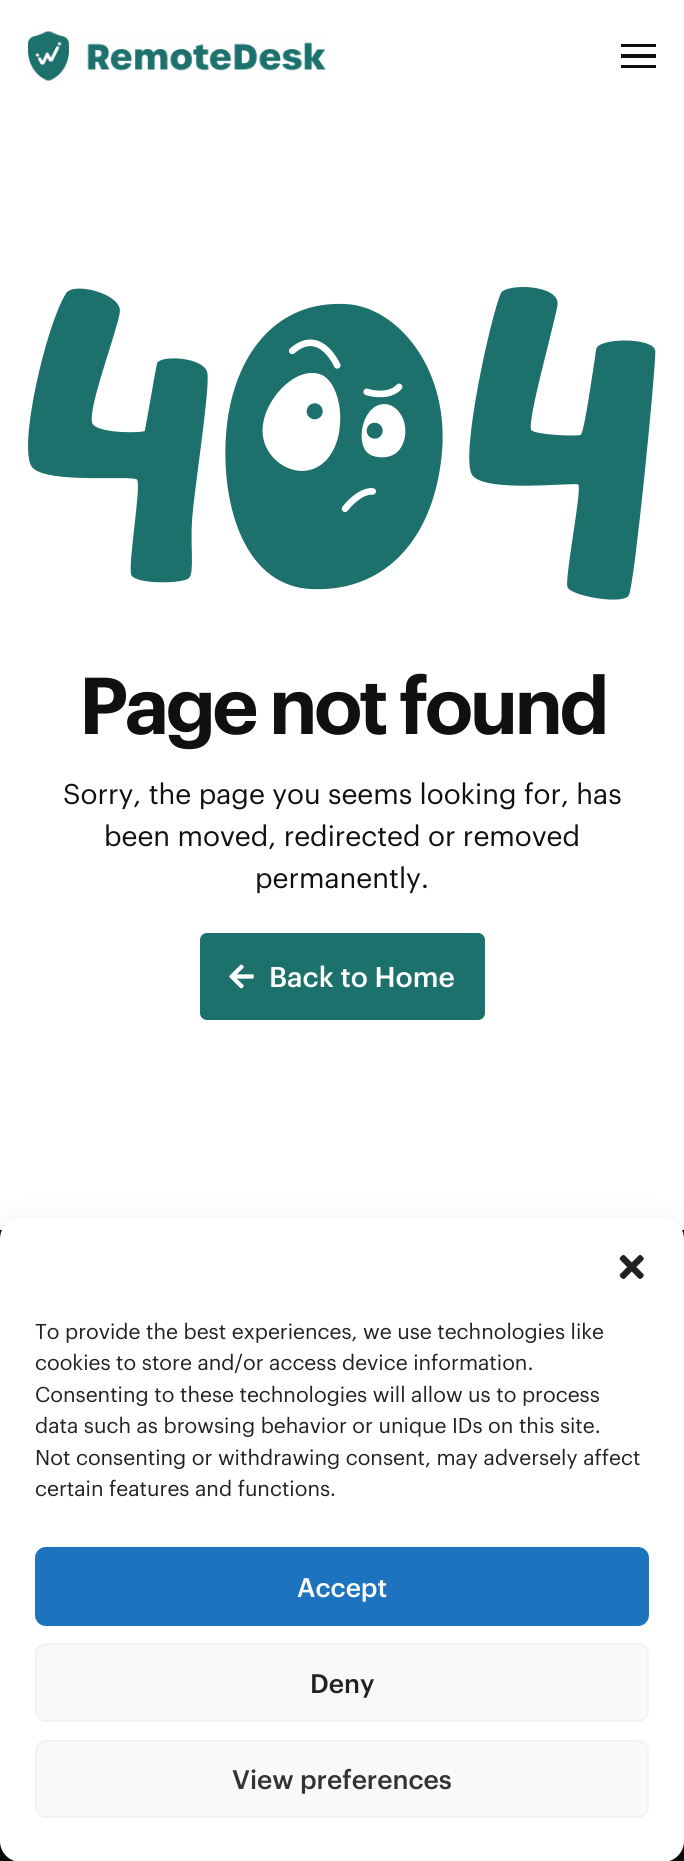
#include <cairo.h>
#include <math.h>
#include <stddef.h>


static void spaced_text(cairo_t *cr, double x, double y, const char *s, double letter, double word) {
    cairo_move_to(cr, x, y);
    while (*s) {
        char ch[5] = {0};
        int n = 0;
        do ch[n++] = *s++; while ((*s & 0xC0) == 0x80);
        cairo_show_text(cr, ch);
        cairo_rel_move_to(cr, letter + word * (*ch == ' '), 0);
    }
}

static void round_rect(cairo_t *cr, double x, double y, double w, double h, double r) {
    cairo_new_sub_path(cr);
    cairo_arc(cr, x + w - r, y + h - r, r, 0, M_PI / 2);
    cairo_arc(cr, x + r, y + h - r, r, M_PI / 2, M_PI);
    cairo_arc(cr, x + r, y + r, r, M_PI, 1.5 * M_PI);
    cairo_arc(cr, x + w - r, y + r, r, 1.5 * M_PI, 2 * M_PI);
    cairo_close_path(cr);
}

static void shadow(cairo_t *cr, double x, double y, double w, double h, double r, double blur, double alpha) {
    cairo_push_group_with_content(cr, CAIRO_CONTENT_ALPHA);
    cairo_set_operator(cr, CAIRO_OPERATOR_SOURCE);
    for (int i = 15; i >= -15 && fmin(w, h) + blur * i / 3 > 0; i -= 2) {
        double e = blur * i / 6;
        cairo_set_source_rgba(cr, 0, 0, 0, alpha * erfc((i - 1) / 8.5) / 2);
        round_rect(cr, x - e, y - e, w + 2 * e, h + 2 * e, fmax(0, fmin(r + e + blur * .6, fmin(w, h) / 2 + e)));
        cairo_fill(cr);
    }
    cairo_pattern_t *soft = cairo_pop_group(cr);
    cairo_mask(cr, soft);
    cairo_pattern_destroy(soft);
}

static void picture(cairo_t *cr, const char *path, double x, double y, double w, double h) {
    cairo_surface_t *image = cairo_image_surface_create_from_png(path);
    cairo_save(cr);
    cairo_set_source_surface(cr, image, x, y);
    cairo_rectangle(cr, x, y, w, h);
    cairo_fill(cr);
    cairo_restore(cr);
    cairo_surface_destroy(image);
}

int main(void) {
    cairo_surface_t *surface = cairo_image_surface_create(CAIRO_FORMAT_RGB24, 684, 1861);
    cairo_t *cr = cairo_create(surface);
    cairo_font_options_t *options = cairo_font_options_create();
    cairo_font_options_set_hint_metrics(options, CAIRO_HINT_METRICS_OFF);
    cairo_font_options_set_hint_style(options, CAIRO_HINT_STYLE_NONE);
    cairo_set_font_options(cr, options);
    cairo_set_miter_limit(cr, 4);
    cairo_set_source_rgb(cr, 1, 1, 1);
    cairo_paint(cr);
    picture(cr, "img1.png", 28, 31, 298, 50);
    cairo_set_source_rgb(cr, 0.063, 0.063, 0.075);
    cairo_rectangle(cr, 621, 44, 35, 3);
    cairo_fill(cr);
    cairo_rectangle(cr, 621, 54, 35, 4);
    cairo_fill(cr);
    cairo_rectangle(cr, 621, 65, 35, 3);
    cairo_fill(cr);
    picture(cr, "img2.png", 28, 287, 628, 313);
    cairo_select_font_face(cr, "Graphik SemiBold", CAIRO_FONT_SLANT_NORMAL, CAIRO_FONT_WEIGHT_NORMAL);
    cairo_set_font_size(cr, 78.75);
    spaced_text(cr, 79, 734, "Page not found", -3.5, 0);
    cairo_select_font_face(cr, "Graphik", CAIRO_FONT_SLANT_ITALIC, CAIRO_FONT_WEIGHT_NORMAL);
    cairo_set_font_size(cr, 28);
    cairo_move_to(cr, 63, 804);
    cairo_show_text(cr, "Sorry, the page you seems looking for, has");
    cairo_move_to(cr, 104, 846);
    cairo_show_text(cr, "been moved, redirected or removed");
    cairo_move_to(cr, 255, 888);
    cairo_show_text(cr, "permanently.");
    cairo_set_source_rgb(cr, 0.11, 0.443, 0.424);
    round_rect(cr, 201, 934, 283, 85, 6);
    cairo_fill_preserve(cr);
    cairo_stroke(cr);
    picture(cr, "img3.png", 229, 964, 25, 25);
    cairo_select_font_face(cr, "Graphik Medium", CAIRO_FONT_SLANT_NORMAL, CAIRO_FONT_WEIGHT_NORMAL);
    cairo_set_source_rgb(cr, 1, 1, 1);
    cairo_move_to(cr, 269, 987);
    cairo_show_text(cr, "Back to Home");
    cairo_set_source_rgb(cr, 0.055, 0.055, 0.059);
    cairo_rectangle(cr, 0, 1230, 684, 631);
    cairo_fill(cr);
    cairo_set_source_rgb(cr, 0, 0, 0);
    shadow(cr, 0, 1229, 684, 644, 21, 5, 0.23);
    shadow(cr, 0, 1236, 684, 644, 21, 17.5, 0.19);
    cairo_set_source_rgb(cr, 1, 1, 1);
    round_rect(cr, 0, 1218, 684, 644, 21);
    cairo_fill(cr);
    picture(cr, "img4.png", 619, 1255, 25, 24);
    cairo_select_font_face(cr, "Graphik", CAIRO_FONT_SLANT_ITALIC, CAIRO_FONT_WEIGHT_NORMAL);
    cairo_set_font_size(cr, 21);
    cairo_set_source_rgb(cr, 0.133, 0.133, 0.133);
    cairo_move_to(cr, 35, 1339);
    cairo_show_text(cr, "To provide the best experiences, we use technologies like");
    cairo_move_to(cr, 35, 1370);
    cairo_show_text(cr, "cookies to store and/or access device information.");
    cairo_move_to(cr, 35, 1402);
    cairo_show_text(cr, "Consenting to these technologies will allow us to process");
    cairo_move_to(cr, 35, 1433);
    cairo_show_text(cr, "data such as browsing behavior or unique IDs on this site.");
    cairo_move_to(cr, 35, 1465);
    cairo_show_text(cr, "Not consenting or withdrawing consent, may adversely affect");
    cairo_move_to(cr, 35, 1496);
    cairo_show_text(cr, "certain features and functions.");
    cairo_set_source_rgb(cr, 0.118, 0.451, 0.745);
    round_rect(cr, 36, 1548, 612, 77, 10);
    cairo_fill_preserve(cr);
    cairo_stroke(cr);
    cairo_select_font_face(cr, "Graphik Medium", CAIRO_FONT_SLANT_NORMAL, CAIRO_FONT_WEIGHT_NORMAL);
    cairo_set_font_size(cr, 26.25);
    cairo_set_source_rgb(cr, 1, 1, 1);
    cairo_move_to(cr, 297, 1597);
    cairo_show_text(cr, "Accept");
    cairo_set_source_rgb(cr, 0.976, 0.976, 0.976);
    round_rect(cr, 36, 1644, 612, 77, 10);
    cairo_fill_preserve(cr);
    cairo_set_source_rgb(cr, 0.949, 0.949, 0.949);
    cairo_stroke(cr);
    cairo_set_source_rgb(cr, 0.133, 0.133, 0.133);
    cairo_move_to(cr, 310, 1693);
    cairo_show_text(cr, "Deny");
    cairo_set_source_rgb(cr, 0.976, 0.976, 0.976);
    round_rect(cr, 36, 1741, 612, 76, 10);
    cairo_fill_preserve(cr);
    cairo_set_source_rgb(cr, 0.949, 0.949, 0.949);
    cairo_stroke(cr);
    cairo_set_source_rgb(cr, 0.2, 0.2, 0.2);
    cairo_move_to(cr, 232, 1789);
    cairo_show_text(cr, "View preferences");
    cairo_surface_write_to_png(surface, "page.png");
    cairo_font_options_destroy(options);
    cairo_destroy(cr);
    cairo_surface_destroy(surface);
    return 0;
}
